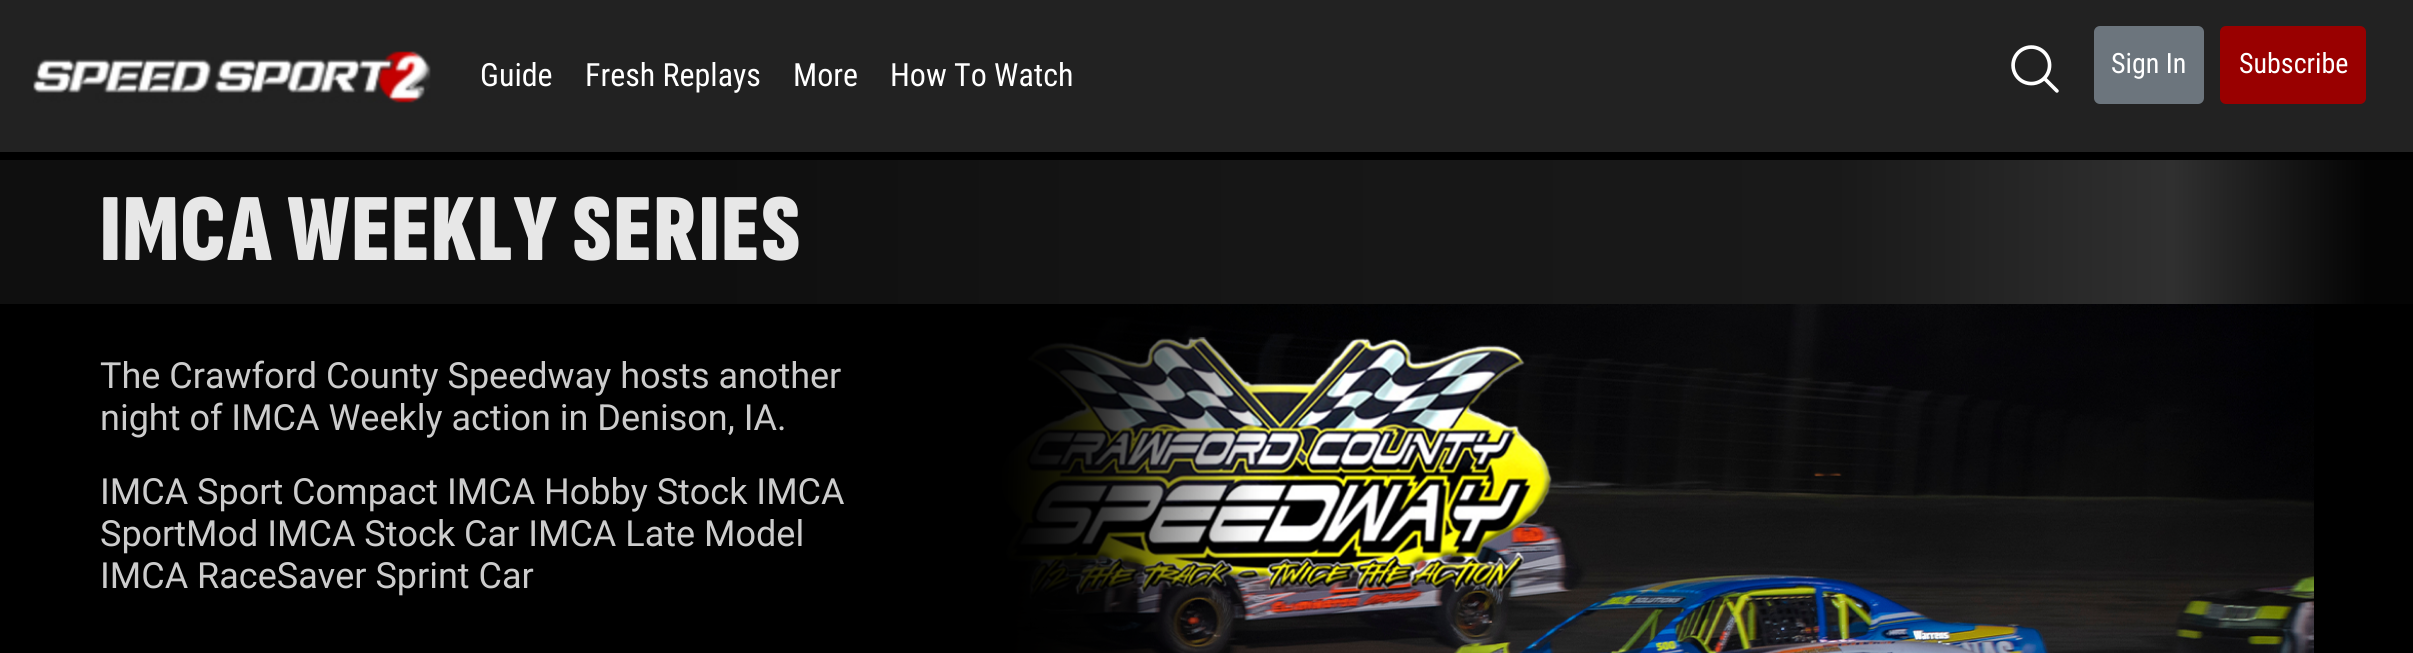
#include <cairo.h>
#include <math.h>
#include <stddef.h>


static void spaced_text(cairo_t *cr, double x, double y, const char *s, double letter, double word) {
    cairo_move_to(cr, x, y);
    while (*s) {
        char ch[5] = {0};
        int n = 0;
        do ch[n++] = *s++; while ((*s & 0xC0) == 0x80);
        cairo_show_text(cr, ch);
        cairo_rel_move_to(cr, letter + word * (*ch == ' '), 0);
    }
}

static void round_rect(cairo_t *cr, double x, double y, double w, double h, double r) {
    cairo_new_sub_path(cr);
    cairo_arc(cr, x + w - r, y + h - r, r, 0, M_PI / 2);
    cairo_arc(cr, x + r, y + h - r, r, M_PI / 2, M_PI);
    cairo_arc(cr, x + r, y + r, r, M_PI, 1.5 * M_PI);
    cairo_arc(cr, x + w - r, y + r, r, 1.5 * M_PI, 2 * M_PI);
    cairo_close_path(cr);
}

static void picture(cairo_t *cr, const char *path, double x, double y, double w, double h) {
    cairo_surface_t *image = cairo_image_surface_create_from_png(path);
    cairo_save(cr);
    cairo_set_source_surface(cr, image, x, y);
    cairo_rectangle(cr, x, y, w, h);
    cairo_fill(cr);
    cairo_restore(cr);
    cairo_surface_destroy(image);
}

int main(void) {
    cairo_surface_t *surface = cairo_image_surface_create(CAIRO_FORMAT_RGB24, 2413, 653);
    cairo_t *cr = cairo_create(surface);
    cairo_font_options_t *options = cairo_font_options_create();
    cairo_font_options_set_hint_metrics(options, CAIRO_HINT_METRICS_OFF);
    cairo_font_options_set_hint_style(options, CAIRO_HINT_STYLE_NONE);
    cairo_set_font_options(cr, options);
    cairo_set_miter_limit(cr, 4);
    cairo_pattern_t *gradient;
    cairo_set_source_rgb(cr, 0, 0, 0);
    cairo_paint(cr);
    cairo_set_source_rgb(cr, 0.133, 0.133, 0.133);
    cairo_rectangle(cr, 0, 0, 2413, 152);
    cairo_fill(cr);
    picture(cr, "img1.png", 33, 51, 398, 52);
    cairo_select_font_face(cr, "Roboto Condensed", CAIRO_FONT_SLANT_NORMAL, CAIRO_FONT_WEIGHT_NORMAL);
    cairo_set_font_size(cr, 32);
    cairo_set_source_rgb(cr, 1, 1, 1);
    cairo_move_to(cr, 480, 86);
    cairo_show_text(cr, "Guide");
    cairo_move_to(cr, 585, 86);
    cairo_show_text(cr, "Fresh Replays");
    cairo_move_to(cr, 793, 86);
    cairo_show_text(cr, "More");
    cairo_move_to(cr, 890, 86);
    cairo_show_text(cr, "How To Watch");
    picture(cr, "img2.png", 2011, 45, 48, 48);
    cairo_set_source_rgb(cr, 0.424, 0.459, 0.49);
    round_rect(cr, 2095, 27, 108, 76, 5);
    cairo_fill_preserve(cr);
    cairo_stroke(cr);
    cairo_set_font_size(cr, 28);
    cairo_set_source_rgb(cr, 1, 1, 1);
    cairo_move_to(cr, 2111, 73);
    cairo_show_text(cr, "Sign In");
    cairo_set_source_rgb(cr, 0.6, 0, 0);
    round_rect(cr, 2221, 27, 144, 76, 5);
    cairo_fill_preserve(cr);
    cairo_stroke(cr);
    cairo_set_source_rgb(cr, 1, 1, 1);
    cairo_move_to(cr, 2239, 73);
    cairo_show_text(cr, "Subscribe");
    gradient = cairo_pattern_create_linear(0, 232, 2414, 232);
    cairo_pattern_add_color_stop_rgba(gradient, 0.29, 0.059, 0.059, 0.059, 1);
    cairo_pattern_add_color_stop_rgba(gradient, 0.52, 0.086, 0.086, 0.086, 1);
    cairo_pattern_add_color_stop_rgba(gradient, 0.76, 0.098, 0.098, 0.098, 1);
    cairo_pattern_add_color_stop_rgba(gradient, 0.9, 0.188, 0.188, 0.188, 1);
    cairo_pattern_add_color_stop_rgba(gradient, 0.98, 0.016, 0.016, 0.016, 1);
    cairo_set_source(cr, gradient);
    cairo_pattern_destroy(gradient);
    cairo_rectangle(cr, 0, 160, 2413, 144);
    cairo_fill(cr);
    cairo_select_font_face(cr, "Sofia Sans Extra Condensed Black", CAIRO_FONT_SLANT_NORMAL, CAIRO_FONT_WEIGHT_NORMAL);
    cairo_set_font_size(cr, 96);
    cairo_set_source_rgb(cr, 0.906, 0.906, 0.906);
    spaced_text(cr, 100, 260, "IMCA WEEKLY SERIES", 1.9, 0);
    cairo_select_font_face(cr, "Roboto", CAIRO_FONT_SLANT_NORMAL, CAIRO_FONT_WEIGHT_NORMAL);
    cairo_set_font_size(cr, 36);
    cairo_set_source_rgb(cr, 0.8, 0.8, 0.8);
    cairo_move_to(cr, 100, 388);
    cairo_show_text(cr, "The Crawford County Speedway hosts another");
    cairo_move_to(cr, 100, 430);
    cairo_show_text(cr, "night of IMCA Weekly action in Denison, IA.");
    cairo_move_to(cr, 100, 504);
    cairo_show_text(cr, "IMCA Sport Compact IMCA Hobby Stock IMCA");
    cairo_move_to(cr, 100, 546);
    cairo_show_text(cr, "SportMod IMCA Stock Car IMCA Late Model");
    cairo_move_to(cr, 100, 588);
    cairo_show_text(cr, "IMCA RaceSaver Sprint Car");
    picture(cr, "img3.png", 1000, 304, 1314, 349);
    cairo_surface_write_to_png(surface, "page.png");
    cairo_font_options_destroy(options);
    cairo_destroy(cr);
    cairo_surface_destroy(surface);
    return 0;
}
